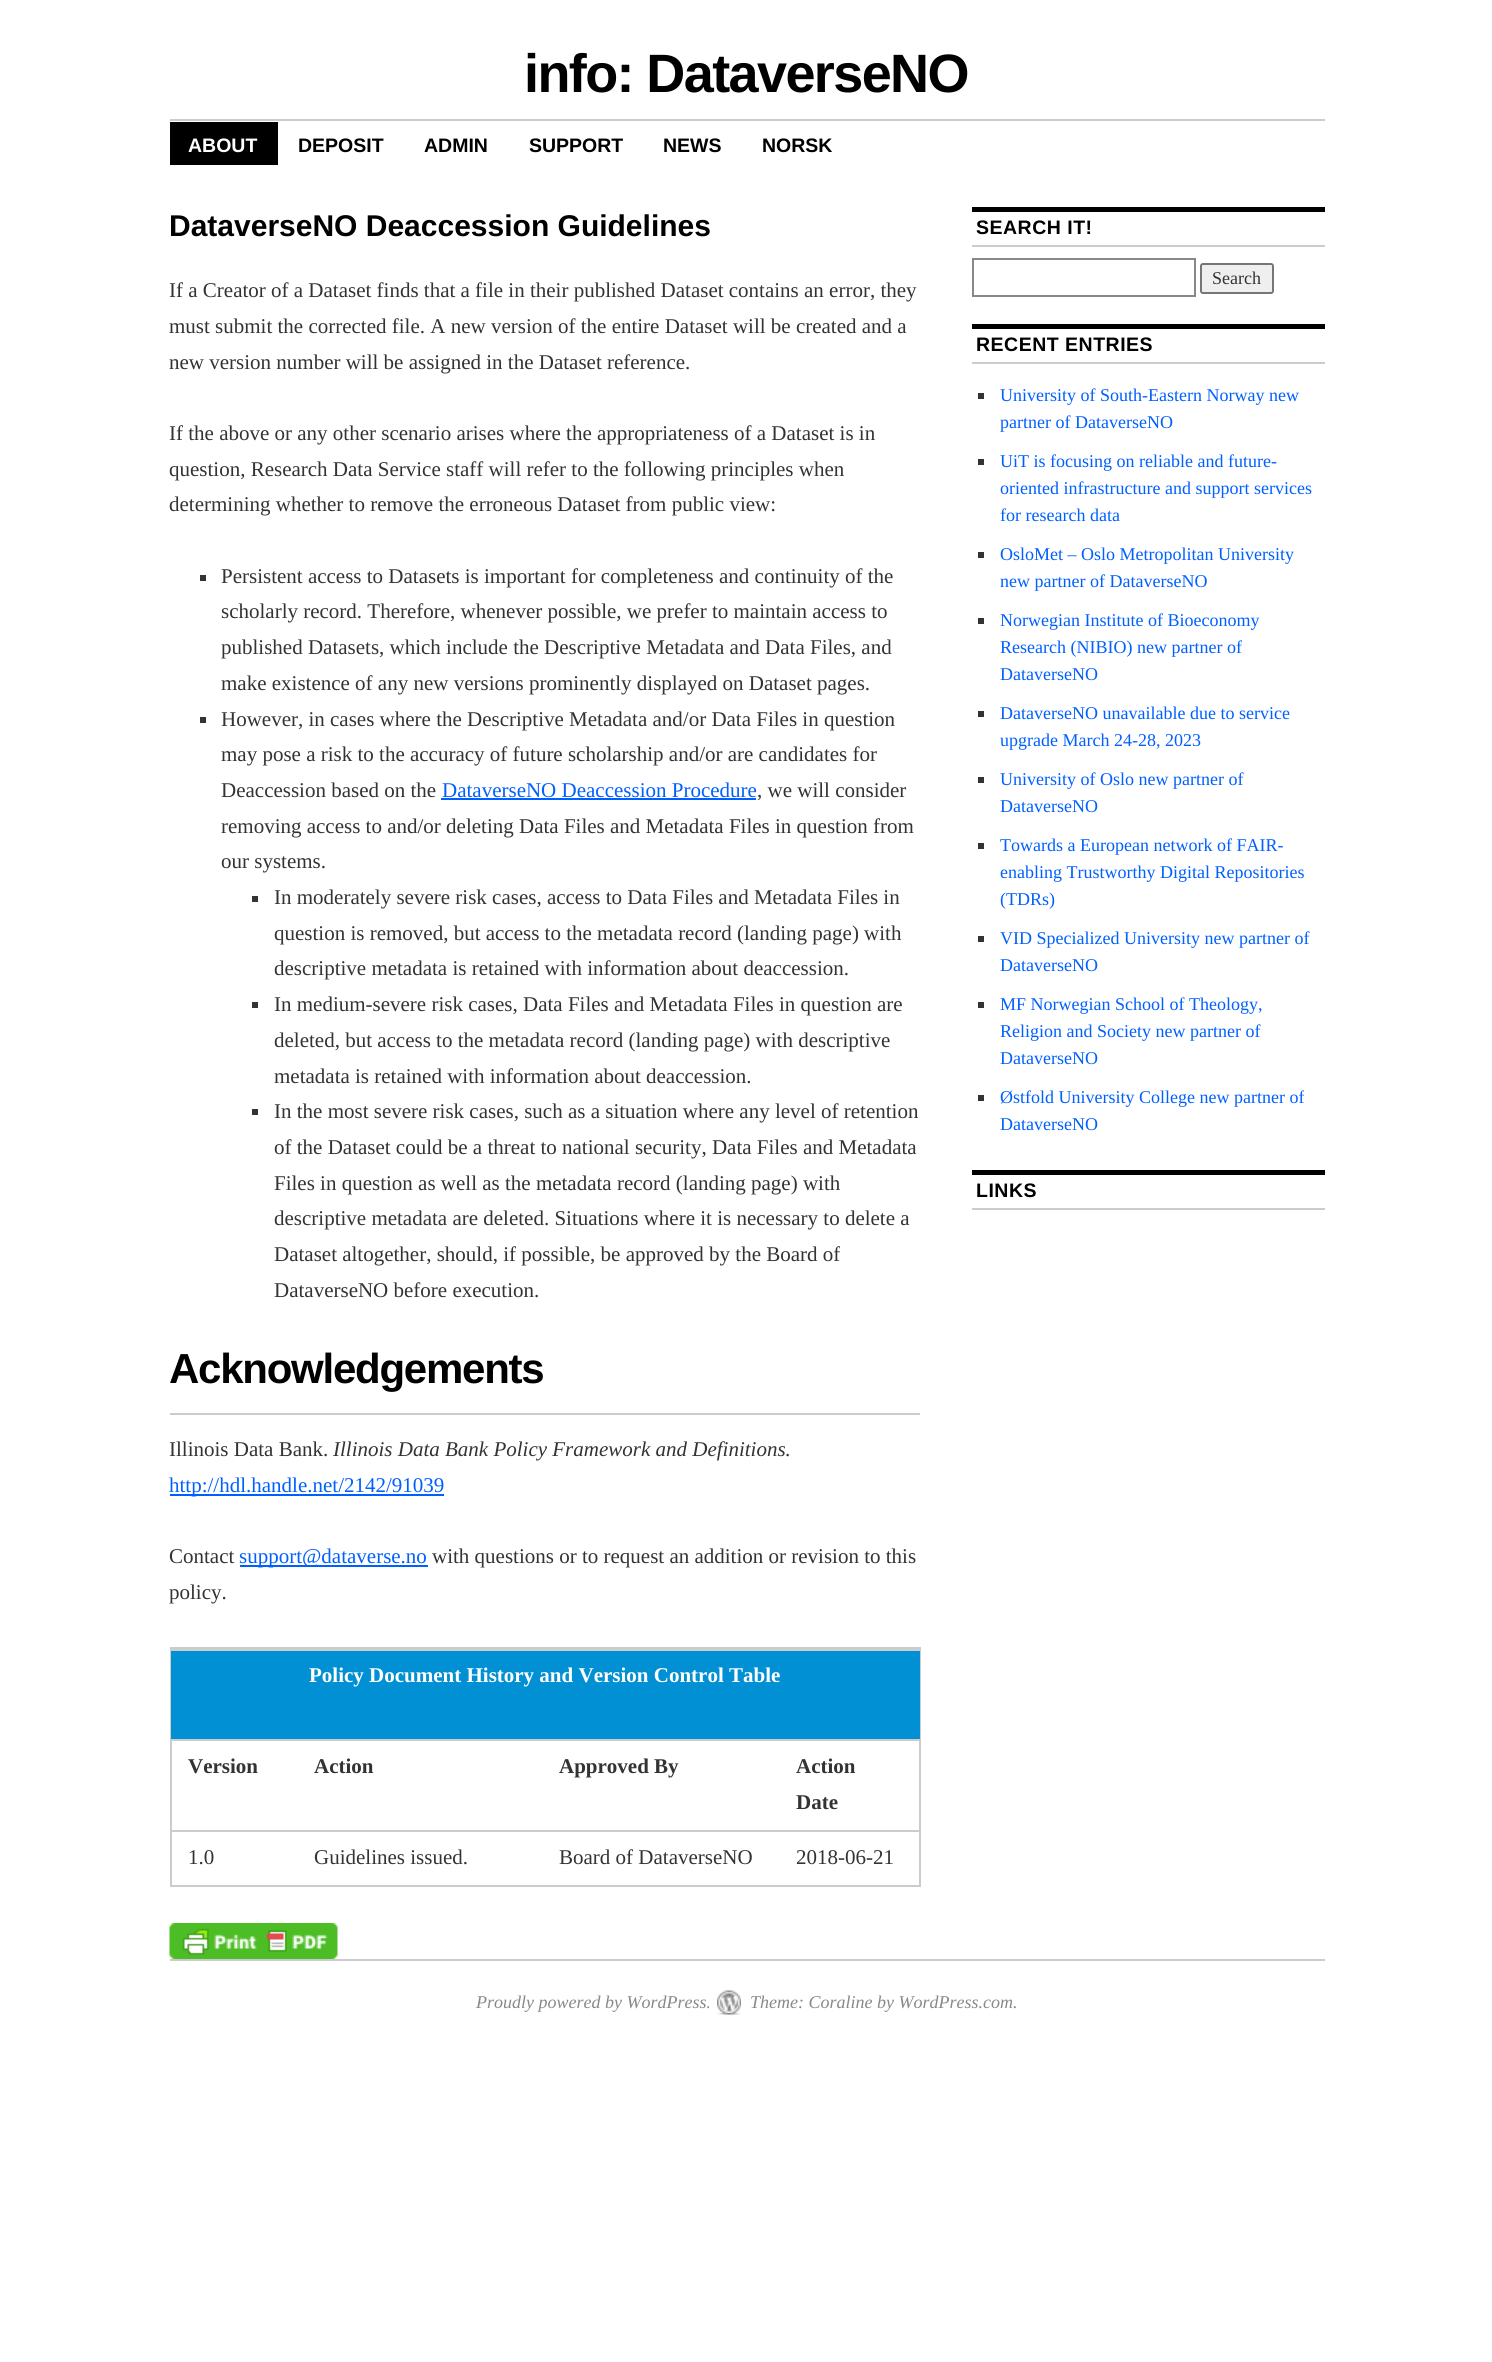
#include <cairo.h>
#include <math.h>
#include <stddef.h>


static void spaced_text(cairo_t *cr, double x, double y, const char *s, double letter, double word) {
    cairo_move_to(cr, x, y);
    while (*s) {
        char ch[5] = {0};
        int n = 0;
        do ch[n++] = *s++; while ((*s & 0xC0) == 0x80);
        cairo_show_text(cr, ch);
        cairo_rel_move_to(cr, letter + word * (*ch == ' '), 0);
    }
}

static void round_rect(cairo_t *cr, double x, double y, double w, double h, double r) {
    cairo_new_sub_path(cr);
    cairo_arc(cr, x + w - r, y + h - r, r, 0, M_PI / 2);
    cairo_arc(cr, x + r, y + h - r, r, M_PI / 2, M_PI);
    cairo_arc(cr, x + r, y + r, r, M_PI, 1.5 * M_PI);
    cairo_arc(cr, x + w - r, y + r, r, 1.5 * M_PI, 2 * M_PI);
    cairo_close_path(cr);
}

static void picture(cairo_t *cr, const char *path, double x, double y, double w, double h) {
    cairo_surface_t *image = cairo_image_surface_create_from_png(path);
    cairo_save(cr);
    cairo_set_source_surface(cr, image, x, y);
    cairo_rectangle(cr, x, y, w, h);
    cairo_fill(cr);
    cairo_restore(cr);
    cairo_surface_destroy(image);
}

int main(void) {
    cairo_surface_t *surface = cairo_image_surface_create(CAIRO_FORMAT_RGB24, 1492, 2362);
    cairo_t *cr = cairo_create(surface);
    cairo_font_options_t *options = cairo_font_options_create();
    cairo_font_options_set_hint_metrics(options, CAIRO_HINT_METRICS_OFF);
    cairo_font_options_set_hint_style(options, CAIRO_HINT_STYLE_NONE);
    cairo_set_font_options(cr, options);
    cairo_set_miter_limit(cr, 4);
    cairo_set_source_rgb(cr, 1, 1, 1);
    cairo_paint(cr);
    cairo_select_font_face(cr, "Liberation Sans", CAIRO_FONT_SLANT_NORMAL, CAIRO_FONT_WEIGHT_BOLD);
    cairo_set_font_size(cr, 54);
    cairo_set_source_rgb(cr, 0, 0, 0);
    spaced_text(cr, 524, 92, "info: DataverseNO", -1.6, 0);
    cairo_set_source_rgb(cr, 0.8, 0.8, 0.8);
    cairo_rectangle(cr, 170, 119, 1155, 2);
    cairo_fill(cr);
    cairo_set_source_rgb(cr, 0, 0, 0);
    cairo_rectangle(cr, 170, 122, 108, 43);
    cairo_fill(cr);
    cairo_set_font_size(cr, 19.5);
    cairo_set_source_rgb(cr, 1, 1, 1);
    cairo_move_to(cr, 188, 152);
    cairo_show_text(cr, "ABOUT");
    cairo_set_source_rgb(cr, 0, 0, 0);
    cairo_move_to(cr, 298, 152);
    cairo_show_text(cr, "DEPOSIT");
    cairo_move_to(cr, 424, 152);
    cairo_show_text(cr, "ADMIN");
    cairo_move_to(cr, 529, 152);
    cairo_show_text(cr, "SUPPORT");
    cairo_move_to(cr, 663, 152);
    cairo_show_text(cr, "NEWS");
    cairo_move_to(cr, 762, 152);
    cairo_show_text(cr, "NORSK");
    cairo_set_font_size(cr, 30);
    cairo_move_to(cr, 169, 236);
    cairo_show_text(cr, "DataverseNO Deaccession Guidelines");
    cairo_select_font_face(cr, "Liberation Serif", CAIRO_FONT_SLANT_NORMAL, CAIRO_FONT_WEIGHT_NORMAL);
    cairo_set_font_size(cr, 21);
    cairo_set_source_rgb(cr, 0.2, 0.2, 0.2);
    cairo_move_to(cr, 169, 297);
    cairo_show_text(cr, "If a Creator of a Dataset finds that a file in their published Dataset contains an error, they");
    cairo_move_to(cr, 169, 333);
    cairo_show_text(cr, "must submit the corrected file. A new version of the entire Dataset will be created and a");
    cairo_move_to(cr, 169, 369);
    cairo_show_text(cr, "new version number will be assigned in the Dataset reference.");
    cairo_move_to(cr, 169, 440);
    cairo_show_text(cr, "If the above or any other scenario arises where the appropriateness of a Dataset is in");
    cairo_move_to(cr, 169, 476);
    cairo_show_text(cr, "question, Research Data Service staff will refer to the following principles when");
    cairo_move_to(cr, 169, 511);
    cairo_show_text(cr, "determining whether to remove the erroneous Dataset from public view:");
    cairo_rectangle(cr, 200, 575, 6, 6);
    cairo_fill(cr);
    cairo_move_to(cr, 221, 583);
    cairo_show_text(cr, "Persistent access to Datasets is important for completeness and continuity of the");
    cairo_move_to(cr, 221, 618);
    cairo_show_text(cr, "scholarly record. Therefore, whenever possible, we prefer to maintain access to");
    cairo_move_to(cr, 221, 654);
    cairo_show_text(cr, "published Datasets, which include the Descriptive Metadata and Data Files, and");
    cairo_move_to(cr, 221, 690);
    cairo_show_text(cr, "make existence of any new versions prominently displayed on Dataset pages.");
    cairo_rectangle(cr, 200, 717, 6, 6);
    cairo_fill(cr);
    cairo_move_to(cr, 221, 726);
    cairo_show_text(cr, "However, in cases where the Descriptive Metadata and/or Data Files in question");
    cairo_move_to(cr, 221, 761);
    cairo_show_text(cr, "may pose a risk to the accuracy of future scholarship and/or are candidates for");
    cairo_move_to(cr, 221, 797);
    cairo_show_text(cr, "Deaccession based on the");
    cairo_set_source_rgb(cr, 0, 0.376, 1);
    cairo_move_to(cr, 442, 797);
    cairo_show_text(cr, "DataverseNO Deaccession Procedure");
    cairo_rectangle(cr, 441, 798, 315, 2);
    cairo_fill(cr);
    cairo_set_source_rgb(cr, 0.2, 0.2, 0.2);
    cairo_move_to(cr, 757, 797);
    cairo_show_text(cr, ", we will consider");
    cairo_move_to(cr, 221, 833);
    cairo_show_text(cr, "removing access to and/or deleting Data Files and Metadata Files in question from");
    cairo_move_to(cr, 221, 868);
    cairo_show_text(cr, "our systems.");
    cairo_rectangle(cr, 252, 896, 6, 6);
    cairo_fill(cr);
    cairo_move_to(cr, 274, 904);
    cairo_show_text(cr, "In moderately severe risk cases, access to Data Files and Metadata Files in");
    cairo_move_to(cr, 274, 940);
    cairo_show_text(cr, "question is removed, but access to the metadata record (landing page) with");
    cairo_move_to(cr, 274, 975);
    cairo_show_text(cr, "descriptive metadata is retained with information about deaccession.");
    cairo_rectangle(cr, 252, 1002, 6, 6);
    cairo_fill(cr);
    cairo_move_to(cr, 274, 1011);
    cairo_show_text(cr, "In medium-severe risk cases, Data Files and Metadata Files in question are");
    cairo_move_to(cr, 274, 1047);
    cairo_show_text(cr, "deleted, but access to the metadata record (landing page) with descriptive");
    cairo_move_to(cr, 274, 1083);
    cairo_show_text(cr, "metadata is retained with information about deaccession.");
    cairo_rectangle(cr, 252, 1109, 6, 6);
    cairo_fill(cr);
    cairo_move_to(cr, 274, 1118);
    cairo_show_text(cr, "In the most severe risk cases, such as a situation where any level of retention");
    cairo_move_to(cr, 274, 1154);
    cairo_show_text(cr, "of the Dataset could be a threat to national security, Data Files and Metadata");
    cairo_move_to(cr, 274, 1190);
    cairo_show_text(cr, "Files in question as well as the metadata record (landing page) with");
    cairo_move_to(cr, 274, 1225);
    cairo_show_text(cr, "descriptive metadata are deleted. Situations where it is necessary to delete a");
    cairo_move_to(cr, 274, 1261);
    cairo_show_text(cr, "Dataset altogether, should, if possible, be approved by the Board of");
    cairo_move_to(cr, 274, 1297);
    cairo_show_text(cr, "DataverseNO before execution.");
    cairo_set_source_rgb(cr, 0.8, 0.8, 0.8);
    cairo_rectangle(cr, 170, 1413, 750, 2);
    cairo_fill(cr);
    cairo_select_font_face(cr, "Liberation Sans", CAIRO_FONT_SLANT_NORMAL, CAIRO_FONT_WEIGHT_BOLD);
    cairo_set_font_size(cr, 42);
    cairo_set_source_rgb(cr, 0, 0, 0);
    spaced_text(cr, 169, 1383, "Acknowledgements", -1.25, 0);
    cairo_select_font_face(cr, "Liberation Serif", CAIRO_FONT_SLANT_NORMAL, CAIRO_FONT_WEIGHT_NORMAL);
    cairo_set_font_size(cr, 21);
    cairo_set_source_rgb(cr, 0.2, 0.2, 0.2);
    cairo_move_to(cr, 169, 1456);
    cairo_show_text(cr, "Illinois Data Bank.");
    cairo_select_font_face(cr, "Liberation Serif", CAIRO_FONT_SLANT_ITALIC, CAIRO_FONT_WEIGHT_NORMAL);
    cairo_move_to(cr, 333, 1456);
    cairo_show_text(cr, "Illinois Data Bank Policy Framework and Definitions.");
    cairo_set_source_rgb(cr, 0, 0.376, 1);
    cairo_rectangle(cr, 170, 1494, 274, 2);
    cairo_fill(cr);
    cairo_select_font_face(cr, "Liberation Serif", CAIRO_FONT_SLANT_NORMAL, CAIRO_FONT_WEIGHT_NORMAL);
    cairo_move_to(cr, 169, 1492);
    cairo_show_text(cr, "http://hdl.handle.net/2142/91039");
    cairo_set_source_rgb(cr, 0.2, 0.2, 0.2);
    cairo_move_to(cr, 169, 1563);
    cairo_show_text(cr, "Contact");
    cairo_set_source_rgb(cr, 0, 0.376, 1);
    cairo_rectangle(cr, 240, 1565, 188, 2);
    cairo_fill(cr);
    cairo_move_to(cr, 239, 1563);
    cairo_show_text(cr, "support@dataverse.no");
    cairo_set_source_rgb(cr, 0.2, 0.2, 0.2);
    cairo_move_to(cr, 432, 1563);
    cairo_show_text(cr, "with questions or to request an addition or revision to this");
    cairo_move_to(cr, 169, 1599);
    cairo_show_text(cr, "policy.");
    cairo_rectangle(cr, 171, 1648, 749, 238);
    cairo_set_source_rgb(cr, 0.8, 0.8, 0.8);
    cairo_stroke(cr);
    cairo_set_source_rgb(cr, 0, 0.565, 0.827);
    cairo_rectangle(cr, 171, 1651, 749, 88);
    cairo_fill(cr);
    cairo_set_source_rgb(cr, 0.8, 0.8, 0.8);
    cairo_rectangle(cr, 171, 1649, 749, 2);
    cairo_fill(cr);
    cairo_select_font_face(cr, "Liberation Serif", CAIRO_FONT_SLANT_NORMAL, CAIRO_FONT_WEIGHT_BOLD);
    cairo_set_source_rgb(cr, 1, 1, 1);
    cairo_move_to(cr, 309, 1682);
    cairo_show_text(cr, "Policy Document History and Version Control Table");
    cairo_set_source_rgb(cr, 0.8, 0.8, 0.8);
    cairo_rectangle(cr, 171, 1739, 749, 2);
    cairo_fill(cr);
    cairo_set_source_rgb(cr, 0.2, 0.2, 0.2);
    cairo_move_to(cr, 188, 1773);
    cairo_show_text(cr, "Version");
    cairo_move_to(cr, 314, 1773);
    cairo_show_text(cr, "Action");
    cairo_move_to(cr, 559, 1773);
    cairo_show_text(cr, "Approved By");
    cairo_move_to(cr, 796, 1773);
    cairo_show_text(cr, "Action");
    cairo_move_to(cr, 796, 1809);
    cairo_show_text(cr, "Date");
    cairo_set_source_rgb(cr, 0.8, 0.8, 0.8);
    cairo_rectangle(cr, 171, 1830, 749, 2);
    cairo_fill(cr);
    cairo_select_font_face(cr, "Liberation Serif", CAIRO_FONT_SLANT_NORMAL, CAIRO_FONT_WEIGHT_NORMAL);
    cairo_set_source_rgb(cr, 0.2, 0.2, 0.2);
    cairo_move_to(cr, 188, 1864);
    cairo_show_text(cr, "1.0");
    cairo_move_to(cr, 314, 1864);
    cairo_show_text(cr, "Guidelines issued.");
    cairo_move_to(cr, 559, 1864);
    cairo_show_text(cr, "Board of DataverseNO");
    cairo_move_to(cr, 796, 1864);
    cairo_show_text(cr, "2018-06-21");
    picture(cr, "img1.png", 169, 1923, 169, 36);
    cairo_set_source_rgb(cr, 0, 0, 0);
    cairo_rectangle(cr, 972, 207, 353, 5);
    cairo_fill(cr);
    cairo_set_source_rgb(cr, 0.8, 0.8, 0.8);
    cairo_rectangle(cr, 972, 245, 353, 2);
    cairo_fill(cr);
    cairo_select_font_face(cr, "Liberation Sans", CAIRO_FONT_SLANT_NORMAL, CAIRO_FONT_WEIGHT_BOLD);
    cairo_set_font_size(cr, 19.5);
    cairo_set_source_rgb(cr, 0, 0, 0);
    spaced_text(cr, 976, 234, "SEARCH IT!", 0.5, 0);
    cairo_rectangle(cr, 973, 259, 222, 37);
    cairo_set_source_rgb(cr, 0.533, 0.533, 0.533);
    cairo_stroke(cr);
    cairo_set_source_rgb(cr, 0.937, 0.937, 0.937);
    round_rect(cr, 1201, 264, 72, 29, 2);
    cairo_fill_preserve(cr);
    cairo_set_source_rgb(cr, 0.463, 0.463, 0.463);
    cairo_stroke(cr);
    cairo_select_font_face(cr, "Liberation Serif", CAIRO_FONT_SLANT_NORMAL, CAIRO_FONT_WEIGHT_NORMAL);
    cairo_set_font_size(cr, 18);
    cairo_set_source_rgb(cr, 0.2, 0.2, 0.2);
    cairo_move_to(cr, 1212, 284);
    cairo_show_text(cr, "Search");
    cairo_set_source_rgb(cr, 0, 0, 0);
    cairo_rectangle(cr, 972, 324, 353, 5);
    cairo_fill(cr);
    cairo_set_source_rgb(cr, 0.8, 0.8, 0.8);
    cairo_rectangle(cr, 972, 362, 353, 2);
    cairo_fill(cr);
    cairo_select_font_face(cr, "Liberation Sans", CAIRO_FONT_SLANT_NORMAL, CAIRO_FONT_WEIGHT_BOLD);
    cairo_set_font_size(cr, 19.5);
    cairo_set_source_rgb(cr, 0, 0, 0);
    spaced_text(cr, 976, 351, "RECENT ENTRIES", 0.5, 0);
    cairo_set_source_rgb(cr, 0.2, 0.2, 0.2);
    cairo_rectangle(cr, 978, 393, 6, 6);
    cairo_fill(cr);
    cairo_select_font_face(cr, "Liberation Serif", CAIRO_FONT_SLANT_NORMAL, CAIRO_FONT_WEIGHT_NORMAL);
    cairo_set_font_size(cr, 18);
    cairo_set_source_rgb(cr, 0, 0.376, 1);
    cairo_move_to(cr, 1000, 401);
    cairo_show_text(cr, "University of South-Eastern Norway new");
    cairo_move_to(cr, 1000, 428);
    cairo_show_text(cr, "partner of DataverseNO");
    cairo_set_source_rgb(cr, 0.2, 0.2, 0.2);
    cairo_rectangle(cr, 978, 459, 6, 6);
    cairo_fill(cr);
    cairo_set_source_rgb(cr, 0, 0.376, 1);
    cairo_move_to(cr, 1000, 467);
    cairo_show_text(cr, "UiT is focusing on reliable and future-");
    cairo_move_to(cr, 1000, 494);
    cairo_show_text(cr, "oriented infrastructure and support services");
    cairo_move_to(cr, 1000, 521);
    cairo_show_text(cr, "for research data");
    cairo_set_source_rgb(cr, 0.2, 0.2, 0.2);
    cairo_rectangle(cr, 978, 552, 6, 6);
    cairo_fill(cr);
    cairo_set_source_rgb(cr, 0, 0.376, 1);
    cairo_move_to(cr, 1000, 560);
    cairo_show_text(cr, "OsloMet – Oslo Metropolitan University");
    cairo_move_to(cr, 1000, 587);
    cairo_show_text(cr, "new partner of DataverseNO");
    cairo_set_source_rgb(cr, 0.2, 0.2, 0.2);
    cairo_rectangle(cr, 978, 618, 6, 6);
    cairo_fill(cr);
    cairo_set_source_rgb(cr, 0, 0.376, 1);
    cairo_move_to(cr, 1000, 626);
    cairo_show_text(cr, "Norwegian Institute of Bioeconomy");
    cairo_move_to(cr, 1000, 653);
    cairo_show_text(cr, "Research (NIBIO) new partner of");
    cairo_move_to(cr, 1000, 680);
    cairo_show_text(cr, "DataverseNO");
    cairo_set_source_rgb(cr, 0.2, 0.2, 0.2);
    cairo_rectangle(cr, 978, 711, 6, 6);
    cairo_fill(cr);
    cairo_set_source_rgb(cr, 0, 0.376, 1);
    cairo_move_to(cr, 1000, 719);
    cairo_show_text(cr, "DataverseNO unavailable due to service");
    cairo_move_to(cr, 1000, 746);
    cairo_show_text(cr, "upgrade March 24-28, 2023");
    cairo_set_source_rgb(cr, 0.2, 0.2, 0.2);
    cairo_rectangle(cr, 978, 777, 6, 6);
    cairo_fill(cr);
    cairo_set_source_rgb(cr, 0, 0.376, 1);
    cairo_move_to(cr, 1000, 785);
    cairo_show_text(cr, "University of Oslo new partner of");
    cairo_move_to(cr, 1000, 812);
    cairo_show_text(cr, "DataverseNO");
    cairo_set_source_rgb(cr, 0.2, 0.2, 0.2);
    cairo_rectangle(cr, 978, 843, 6, 6);
    cairo_fill(cr);
    cairo_set_source_rgb(cr, 0, 0.376, 1);
    cairo_move_to(cr, 1000, 851);
    cairo_show_text(cr, "Towards a European network of FAIR-");
    cairo_move_to(cr, 1000, 878);
    cairo_show_text(cr, "enabling Trustworthy Digital Repositories");
    cairo_move_to(cr, 1000, 905);
    cairo_show_text(cr, "(TDRs)");
    cairo_set_source_rgb(cr, 0.2, 0.2, 0.2);
    cairo_rectangle(cr, 978, 936, 6, 6);
    cairo_fill(cr);
    cairo_set_source_rgb(cr, 0, 0.376, 1);
    cairo_move_to(cr, 1000, 944);
    cairo_show_text(cr, "VID Specialized University new partner of");
    cairo_move_to(cr, 1000, 971);
    cairo_show_text(cr, "DataverseNO");
    cairo_set_source_rgb(cr, 0.2, 0.2, 0.2);
    cairo_rectangle(cr, 978, 1002, 6, 6);
    cairo_fill(cr);
    cairo_set_source_rgb(cr, 0, 0.376, 1);
    cairo_move_to(cr, 1000, 1010);
    cairo_show_text(cr, "MF Norwegian School of Theology,");
    cairo_move_to(cr, 1000, 1037);
    cairo_show_text(cr, "Religion and Society new partner of");
    cairo_move_to(cr, 1000, 1064);
    cairo_show_text(cr, "DataverseNO");
    cairo_set_source_rgb(cr, 0.2, 0.2, 0.2);
    cairo_rectangle(cr, 978, 1095, 6, 6);
    cairo_fill(cr);
    cairo_set_source_rgb(cr, 0, 0.376, 1);
    cairo_move_to(cr, 1000, 1103);
    cairo_show_text(cr, "Østfold University College new partner of");
    cairo_move_to(cr, 1000, 1130);
    cairo_show_text(cr, "DataverseNO");
    cairo_set_source_rgb(cr, 0, 0, 0);
    cairo_rectangle(cr, 972, 1170, 353, 5);
    cairo_fill(cr);
    cairo_set_source_rgb(cr, 0.8, 0.8, 0.8);
    cairo_rectangle(cr, 972, 1208, 353, 2);
    cairo_fill(cr);
    cairo_select_font_face(cr, "Liberation Sans", CAIRO_FONT_SLANT_NORMAL, CAIRO_FONT_WEIGHT_BOLD);
    cairo_set_font_size(cr, 19.5);
    cairo_set_source_rgb(cr, 0, 0, 0);
    spaced_text(cr, 976, 1197, "LINKS", 0.5, 0);
    cairo_set_source_rgb(cr, 0.8, 0.8, 0.8);
    cairo_rectangle(cr, 170, 1959, 1155, 2);
    cairo_fill(cr);
    picture(cr, "img2.png", 717, 1990, 24, 25);
    cairo_select_font_face(cr, "Liberation Serif", CAIRO_FONT_SLANT_ITALIC, CAIRO_FONT_WEIGHT_NORMAL);
    cairo_set_font_size(cr, 18);
    cairo_set_source_rgb(cr, 0.533, 0.533, 0.533);
    cairo_move_to(cr, 476, 2008);
    cairo_show_text(cr, "Proudly powered by WordPress.");
    cairo_move_to(cr, 750, 2008);
    cairo_show_text(cr, "Theme: Coraline by WordPress.com.");
    cairo_surface_write_to_png(surface, "page.png");
    cairo_font_options_destroy(options);
    cairo_destroy(cr);
    cairo_surface_destroy(surface);
    return 0;
}
